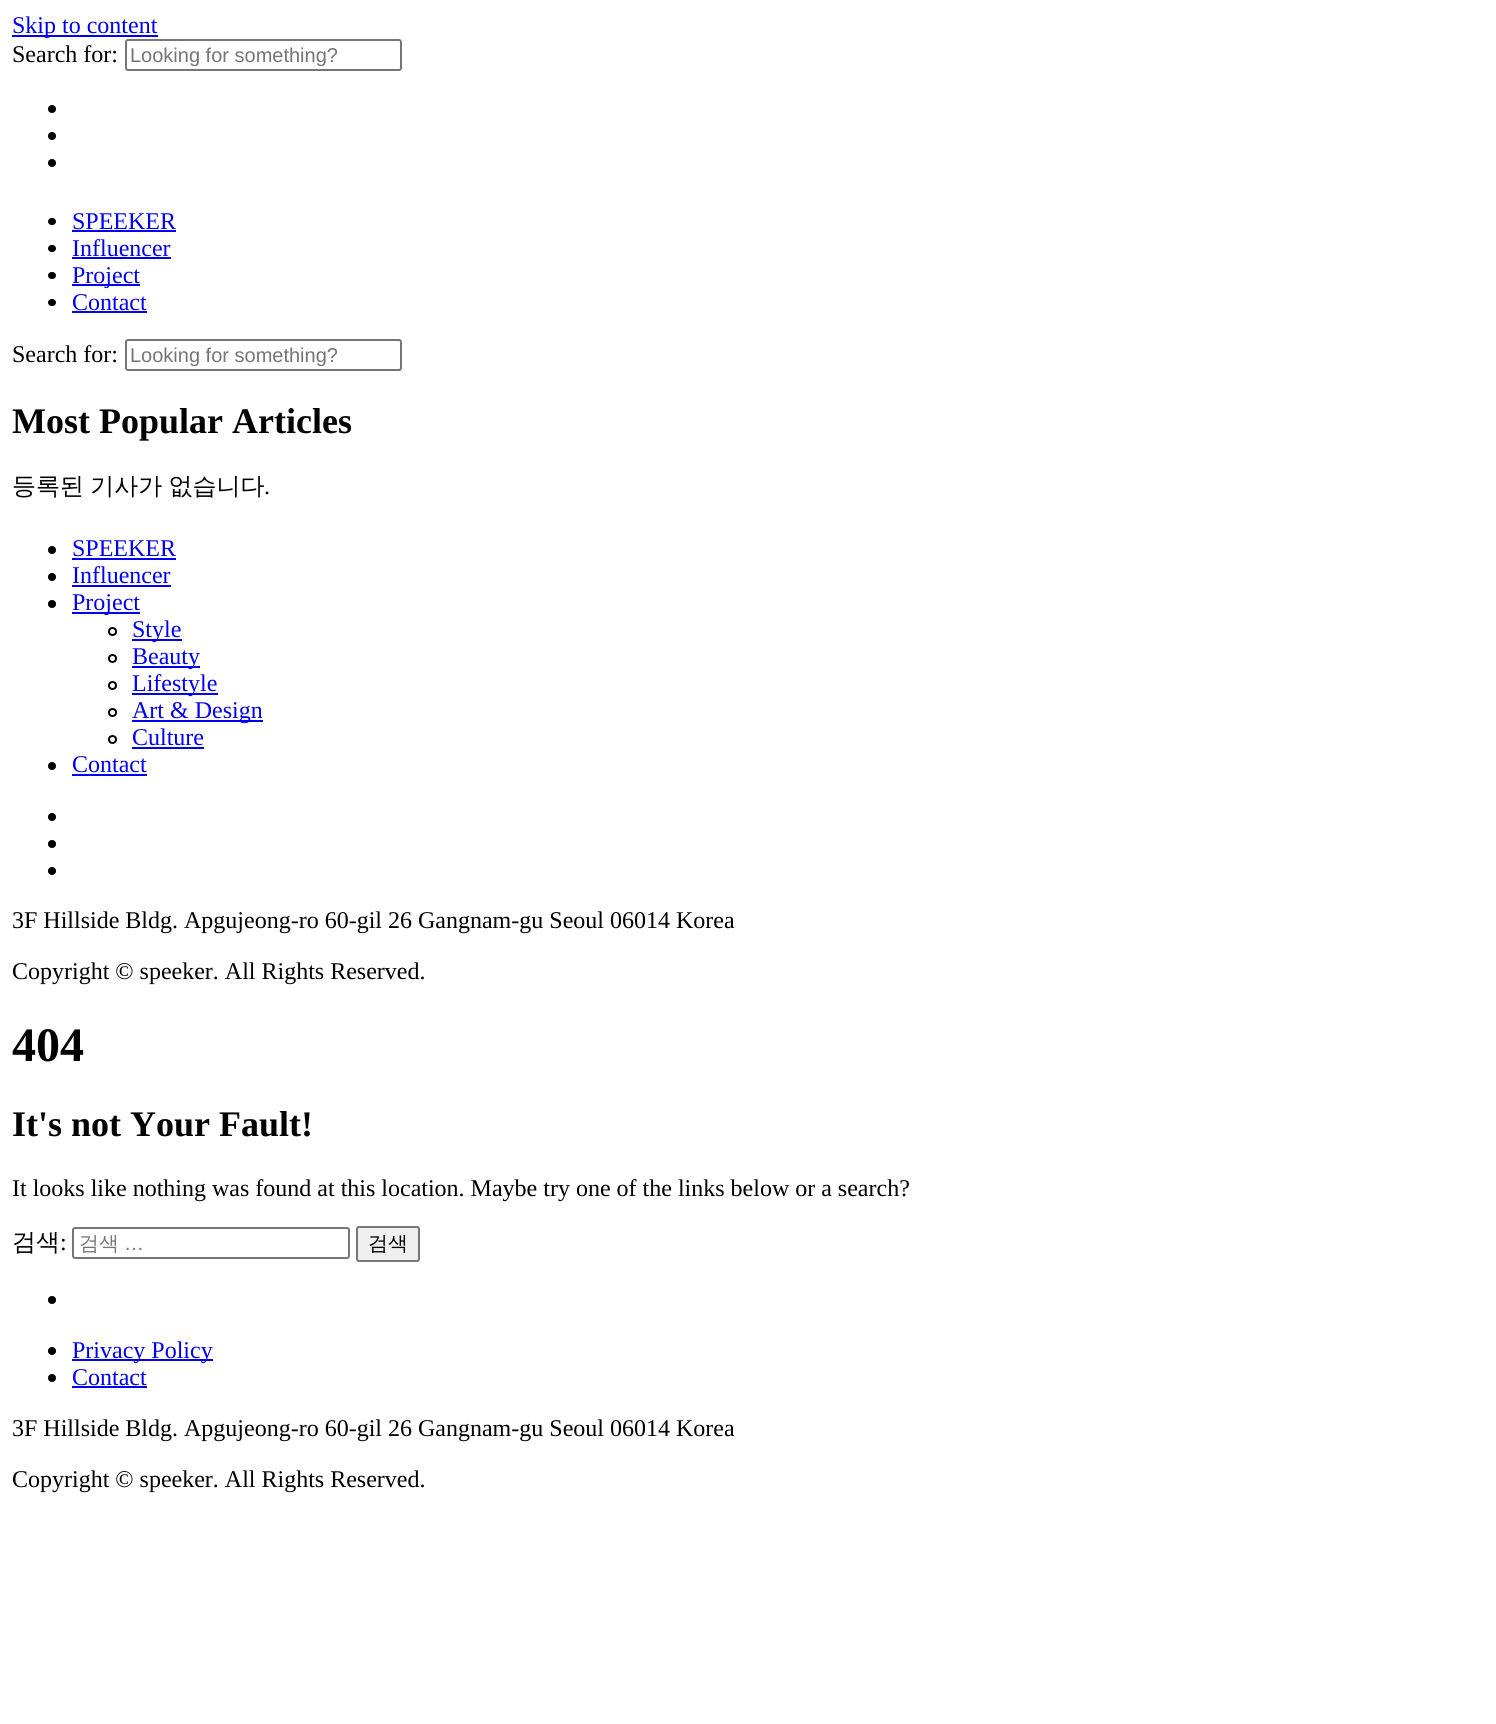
#include <cairo.h>
#include <math.h>
#include <stddef.h>


static void spaced_text(cairo_t *cr, double x, double y, const char *s, double letter, double word) {
    cairo_move_to(cr, x, y);
    while (*s) {
        char ch[5] = {0};
        int n = 0;
        do ch[n++] = *s++; while ((*s & 0xC0) == 0x80);
        cairo_show_text(cr, ch);
        cairo_rel_move_to(cr, letter + word * (*ch == ' '), 0);
    }
}

static void round_rect(cairo_t *cr, double x, double y, double w, double h, double r) {
    cairo_new_sub_path(cr);
    cairo_arc(cr, x + w - r, y + h - r, r, 0, M_PI / 2);
    cairo_arc(cr, x + r, y + h - r, r, M_PI / 2, M_PI);
    cairo_arc(cr, x + r, y + r, r, M_PI, 1.5 * M_PI);
    cairo_arc(cr, x + w - r, y + r, r, 1.5 * M_PI, 2 * M_PI);
    cairo_close_path(cr);
}

int main(void) {
    cairo_surface_t *surface = cairo_image_surface_create(CAIRO_FORMAT_RGB24, 1496, 1724);
    cairo_t *cr = cairo_create(surface);
    cairo_font_options_t *options = cairo_font_options_create();
    cairo_font_options_set_hint_metrics(options, CAIRO_HINT_METRICS_OFF);
    cairo_font_options_set_hint_style(options, CAIRO_HINT_STYLE_NONE);
    cairo_set_font_options(cr, options);
    cairo_set_miter_limit(cr, 4);
    cairo_set_source_rgb(cr, 1, 1, 1);
    cairo_paint(cr);
    cairo_set_source_rgb(cr, 0, 0, 0.933);
    cairo_rectangle(cr, 12, 35, 146, 2);
    cairo_fill(cr);
    cairo_select_font_face(cr, "Liberation Serif", CAIRO_FONT_SLANT_NORMAL, CAIRO_FONT_WEIGHT_NORMAL);
    cairo_set_font_size(cr, 24);
    cairo_move_to(cr, 12, 33);
    cairo_show_text(cr, "Skip to content");
    cairo_set_source_rgb(cr, 0, 0, 0);
    cairo_move_to(cr, 12, 62);
    cairo_show_text(cr, "Search for:");
    round_rect(cr, 126, 40, 275, 30, 2);
    cairo_set_source_rgb(cr, 0.463, 0.463, 0.463);
    cairo_stroke(cr);
    cairo_save(cr);
    cairo_rectangle(cr, 131, 44, 246, 22);
    cairo_clip(cr);
    cairo_select_font_face(cr, "Liberation Sans", CAIRO_FONT_SLANT_NORMAL, CAIRO_FONT_WEIGHT_NORMAL);
    cairo_set_font_size(cr, 20);
    cairo_set_source_rgb(cr, 0.459, 0.459, 0.459);
    cairo_move_to(cr, 130, 62);
    cairo_show_text(cr, "Looking for something?");
    cairo_restore(cr);
    cairo_set_source_rgb(cr, 0, 0, 0);
    cairo_new_path(cr);
    cairo_arc(cr, 52, 109, 4, 0, 2 * M_PI);
    cairo_fill(cr);
    cairo_arc(cr, 52, 136, 4, 0, 2 * M_PI);
    cairo_fill(cr);
    cairo_arc(cr, 52, 163, 4, 0, 2 * M_PI);
    cairo_fill(cr);
    round_rect(cr, 48, 218, 8, 7, 3.5);
    cairo_fill(cr);
    cairo_set_source_rgb(cr, 0, 0, 0.933);
    cairo_move_to(cr, 72, 229);
    cairo_show_text(cr, "SPEEKER");
    cairo_rectangle(cr, 72, 230, 104, 2);
    cairo_fill(cr);
    cairo_set_source_rgb(cr, 0, 0, 0);
    round_rect(cr, 48, 245, 8, 7, 3.5);
    cairo_fill(cr);
    cairo_set_source_rgb(cr, 0, 0, 0.933);
    cairo_move_to(cr, 72, 256);
    cairo_show_text(cr, "Influencer");
    cairo_rectangle(cr, 72, 257, 99, 2);
    cairo_fill(cr);
    cairo_set_source_rgb(cr, 0, 0, 0);
    round_rect(cr, 48, 272, 8, 7, 3.5);
    cairo_fill(cr);
    cairo_set_source_rgb(cr, 0, 0, 0.933);
    cairo_rectangle(cr, 72, 284, 68, 2);
    cairo_fill(cr);
    cairo_move_to(cr, 72, 283);
    cairo_show_text(cr, "Project");
    cairo_set_source_rgb(cr, 0, 0, 0);
    round_rect(cr, 48, 299, 8, 7, 3.5);
    cairo_fill(cr);
    cairo_set_source_rgb(cr, 0, 0, 0.933);
    cairo_move_to(cr, 72, 310);
    cairo_show_text(cr, "Contact");
    cairo_rectangle(cr, 72, 311, 75, 2);
    cairo_fill(cr);
    cairo_set_source_rgb(cr, 0, 0, 0);
    cairo_move_to(cr, 12, 362);
    cairo_show_text(cr, "Search for:");
    round_rect(cr, 126, 340, 275, 30, 2);
    cairo_set_source_rgb(cr, 0.463, 0.463, 0.463);
    cairo_stroke(cr);
    cairo_save(cr);
    cairo_rectangle(cr, 131, 344, 246, 22);
    cairo_clip(cr);
    cairo_select_font_face(cr, "Liberation Sans", CAIRO_FONT_SLANT_NORMAL, CAIRO_FONT_WEIGHT_NORMAL);
    cairo_set_font_size(cr, 20);
    cairo_set_source_rgb(cr, 0.459, 0.459, 0.459);
    cairo_move_to(cr, 130, 362);
    cairo_show_text(cr, "Looking for something?");
    cairo_restore(cr);
    cairo_select_font_face(cr, "Liberation Serif", CAIRO_FONT_SLANT_NORMAL, CAIRO_FONT_WEIGHT_BOLD);
    cairo_set_font_size(cr, 36);
    cairo_set_source_rgb(cr, 0, 0, 0);
    cairo_move_to(cr, 12, 433);
    cairo_show_text(cr, "Most Popular Articles");
    cairo_select_font_face(cr, "WenQuanYi Zen Hei Medium", CAIRO_FONT_SLANT_NORMAL, CAIRO_FONT_WEIGHT_NORMAL);
    cairo_set_font_size(cr, 24);
    spaced_text(cr, 12, 494, "등록된 기사가 없습니다", 0, -1);
    cairo_select_font_face(cr, "Liberation Serif", CAIRO_FONT_SLANT_NORMAL, CAIRO_FONT_WEIGHT_NORMAL);
    cairo_move_to(cr, 264, 494);
    cairo_show_text(cr, ".");
    cairo_new_path(cr);
    cairo_arc(cr, 52, 550, 4, 0, 2 * M_PI);
    cairo_fill(cr);
    cairo_set_source_rgb(cr, 0, 0, 0.933);
    cairo_move_to(cr, 72, 556);
    cairo_show_text(cr, "SPEEKER");
    cairo_rectangle(cr, 72, 558, 104, 2);
    cairo_fill(cr);
    cairo_set_source_rgb(cr, 0, 0, 0);
    cairo_arc(cr, 52, 577, 4, 0, 2 * M_PI);
    cairo_fill(cr);
    cairo_set_source_rgb(cr, 0, 0, 0.933);
    cairo_move_to(cr, 72, 583);
    cairo_show_text(cr, "Influencer");
    cairo_rectangle(cr, 72, 585, 99, 2);
    cairo_fill(cr);
    cairo_set_source_rgb(cr, 0, 0, 0);
    cairo_arc(cr, 52, 604, 4, 0, 2 * M_PI);
    cairo_fill(cr);
    cairo_set_source_rgb(cr, 0, 0, 0.933);
    cairo_rectangle(cr, 72, 612, 68, 2);
    cairo_fill(cr);
    cairo_move_to(cr, 72, 610);
    cairo_show_text(cr, "Project");
    cairo_new_path(cr);
    cairo_arc(cr, 112.5, 631.5, 3.5, 0, 2 * M_PI);
    cairo_set_source_rgb(cr, 0, 0, 0);
    cairo_stroke(cr);
    cairo_set_source_rgb(cr, 0, 0, 0.933);
    cairo_rectangle(cr, 132, 639, 50, 2);
    cairo_fill(cr);
    cairo_move_to(cr, 132, 637);
    cairo_show_text(cr, "Style");
    cairo_new_path(cr);
    cairo_arc(cr, 112.5, 658.5, 3.5, 0, 2 * M_PI);
    cairo_set_source_rgb(cr, 0, 0, 0);
    cairo_stroke(cr);
    cairo_set_source_rgb(cr, 0, 0, 0.933);
    cairo_rectangle(cr, 132, 666, 68, 2);
    cairo_fill(cr);
    cairo_move_to(cr, 132, 664);
    cairo_show_text(cr, "Beauty");
    cairo_new_path(cr);
    cairo_arc(cr, 112.5, 685.5, 3.5, 0, 2 * M_PI);
    cairo_set_source_rgb(cr, 0, 0, 0);
    cairo_stroke(cr);
    cairo_set_source_rgb(cr, 0, 0, 0.933);
    cairo_rectangle(cr, 132, 693, 86, 2);
    cairo_fill(cr);
    cairo_move_to(cr, 132, 691);
    cairo_show_text(cr, "Lifestyle");
    cairo_new_path(cr);
    cairo_arc(cr, 112.5, 712.5, 3.5, 0, 2 * M_PI);
    cairo_set_source_rgb(cr, 0, 0, 0);
    cairo_stroke(cr);
    cairo_set_source_rgb(cr, 0, 0, 0.933);
    cairo_rectangle(cr, 132, 720, 131, 2);
    cairo_fill(cr);
    cairo_move_to(cr, 132, 718);
    cairo_show_text(cr, "Art & Design");
    cairo_new_path(cr);
    cairo_arc(cr, 112.5, 739.5, 3.5, 0, 2 * M_PI);
    cairo_set_source_rgb(cr, 0, 0, 0);
    cairo_stroke(cr);
    cairo_set_source_rgb(cr, 0, 0, 0.933);
    cairo_move_to(cr, 132, 745);
    cairo_show_text(cr, "Culture");
    cairo_rectangle(cr, 132, 747, 72, 2);
    cairo_fill(cr);
    cairo_set_source_rgb(cr, 0, 0, 0);
    cairo_arc(cr, 52, 766, 4, 0, 2 * M_PI);
    cairo_fill(cr);
    cairo_set_source_rgb(cr, 0, 0, 0.933);
    cairo_move_to(cr, 72, 772);
    cairo_show_text(cr, "Contact");
    cairo_rectangle(cr, 72, 774, 75, 2);
    cairo_fill(cr);
    cairo_set_source_rgb(cr, 0, 0, 0);
    cairo_arc(cr, 52, 817, 4, 0, 2 * M_PI);
    cairo_fill(cr);
    cairo_arc(cr, 52, 844, 4, 0, 2 * M_PI);
    cairo_fill(cr);
    cairo_arc(cr, 52, 871, 4, 0, 2 * M_PI);
    cairo_fill(cr);
    cairo_move_to(cr, 12, 928);
    cairo_show_text(cr, "3F Hillside Bldg. Apgujeong-ro 60-gil 26 Gangnam-gu Seoul 06014 Korea");
    cairo_move_to(cr, 12, 979);
    cairo_show_text(cr, "Copyright © speeker. All Rights Reserved.");
    cairo_select_font_face(cr, "Liberation Serif", CAIRO_FONT_SLANT_NORMAL, CAIRO_FONT_WEIGHT_BOLD);
    cairo_set_font_size(cr, 48);
    cairo_move_to(cr, 12, 1061);
    cairo_show_text(cr, "404");
    cairo_set_font_size(cr, 36);
    cairo_move_to(cr, 12, 1136);
    cairo_show_text(cr, "It's not Your Fault!");
    cairo_select_font_face(cr, "Liberation Serif", CAIRO_FONT_SLANT_NORMAL, CAIRO_FONT_WEIGHT_NORMAL);
    cairo_set_font_size(cr, 24);
    cairo_move_to(cr, 12, 1196);
    cairo_show_text(cr, "It looks like nothing was found at this location. Maybe try one of the links below or a search?");
    cairo_select_font_face(cr, "WenQuanYi Zen Hei Medium", CAIRO_FONT_SLANT_NORMAL, CAIRO_FONT_WEIGHT_NORMAL);
    cairo_move_to(cr, 12, 1250);
    cairo_show_text(cr, "검색");
    cairo_select_font_face(cr, "Liberation Serif", CAIRO_FONT_SLANT_NORMAL, CAIRO_FONT_WEIGHT_NORMAL);
    cairo_move_to(cr, 60, 1250);
    cairo_show_text(cr, ":");
    round_rect(cr, 73, 1228, 276, 30, 2);
    cairo_set_source_rgb(cr, 0.463, 0.463, 0.463);
    cairo_stroke(cr);
    cairo_select_font_face(cr, "WenQuanYi Zen Hei Medium", CAIRO_FONT_SLANT_NORMAL, CAIRO_FONT_WEIGHT_NORMAL);
    cairo_set_font_size(cr, 20);
    cairo_set_source_rgb(cr, 0.459, 0.459, 0.459);
    cairo_move_to(cr, 79, 1250);
    cairo_show_text(cr, "검색");
    cairo_select_font_face(cr, "Liberation Sans", CAIRO_FONT_SLANT_NORMAL, CAIRO_FONT_WEIGHT_NORMAL);
    cairo_move_to(cr, 124, 1250);
    cairo_show_text(cr, "…");
    cairo_set_source_rgb(cr, 0.937, 0.937, 0.937);
    round_rect(cr, 357, 1227, 62, 34, 2);
    cairo_fill_preserve(cr);
    cairo_set_source_rgb(cr, 0.463, 0.463, 0.463);
    cairo_stroke(cr);
    cairo_select_font_face(cr, "WenQuanYi Zen Hei Medium", CAIRO_FONT_SLANT_NORMAL, CAIRO_FONT_WEIGHT_NORMAL);
    cairo_set_source_rgb(cr, 0, 0, 0);
    cairo_move_to(cr, 368, 1250);
    cairo_show_text(cr, "검색");
    cairo_new_path(cr);
    cairo_arc(cr, 52, 1300, 4, 0, 2 * M_PI);
    cairo_fill(cr);
    cairo_arc(cr, 52, 1351, 4, 0, 2 * M_PI);
    cairo_fill(cr);
    cairo_set_source_rgb(cr, 0, 0, 0.933);
    cairo_rectangle(cr, 72, 1359, 141, 2);
    cairo_fill(cr);
    cairo_select_font_face(cr, "Liberation Serif", CAIRO_FONT_SLANT_NORMAL, CAIRO_FONT_WEIGHT_NORMAL);
    cairo_set_font_size(cr, 24);
    cairo_move_to(cr, 72, 1358);
    cairo_show_text(cr, "Privacy Policy");
    cairo_set_source_rgb(cr, 0, 0, 0);
    cairo_new_path(cr);
    cairo_arc(cr, 52, 1378, 4, 0, 2 * M_PI);
    cairo_fill(cr);
    cairo_set_source_rgb(cr, 0, 0, 0.933);
    cairo_move_to(cr, 72, 1385);
    cairo_show_text(cr, "Contact");
    cairo_rectangle(cr, 72, 1386, 75, 2);
    cairo_fill(cr);
    cairo_set_source_rgb(cr, 0, 0, 0);
    cairo_move_to(cr, 12, 1436);
    cairo_show_text(cr, "3F Hillside Bldg. Apgujeong-ro 60-gil 26 Gangnam-gu Seoul 06014 Korea");
    cairo_move_to(cr, 12, 1487);
    cairo_show_text(cr, "Copyright © speeker. All Rights Reserved.");
    cairo_surface_write_to_png(surface, "page.png");
    cairo_font_options_destroy(options);
    cairo_destroy(cr);
    cairo_surface_destroy(surface);
    return 0;
}
